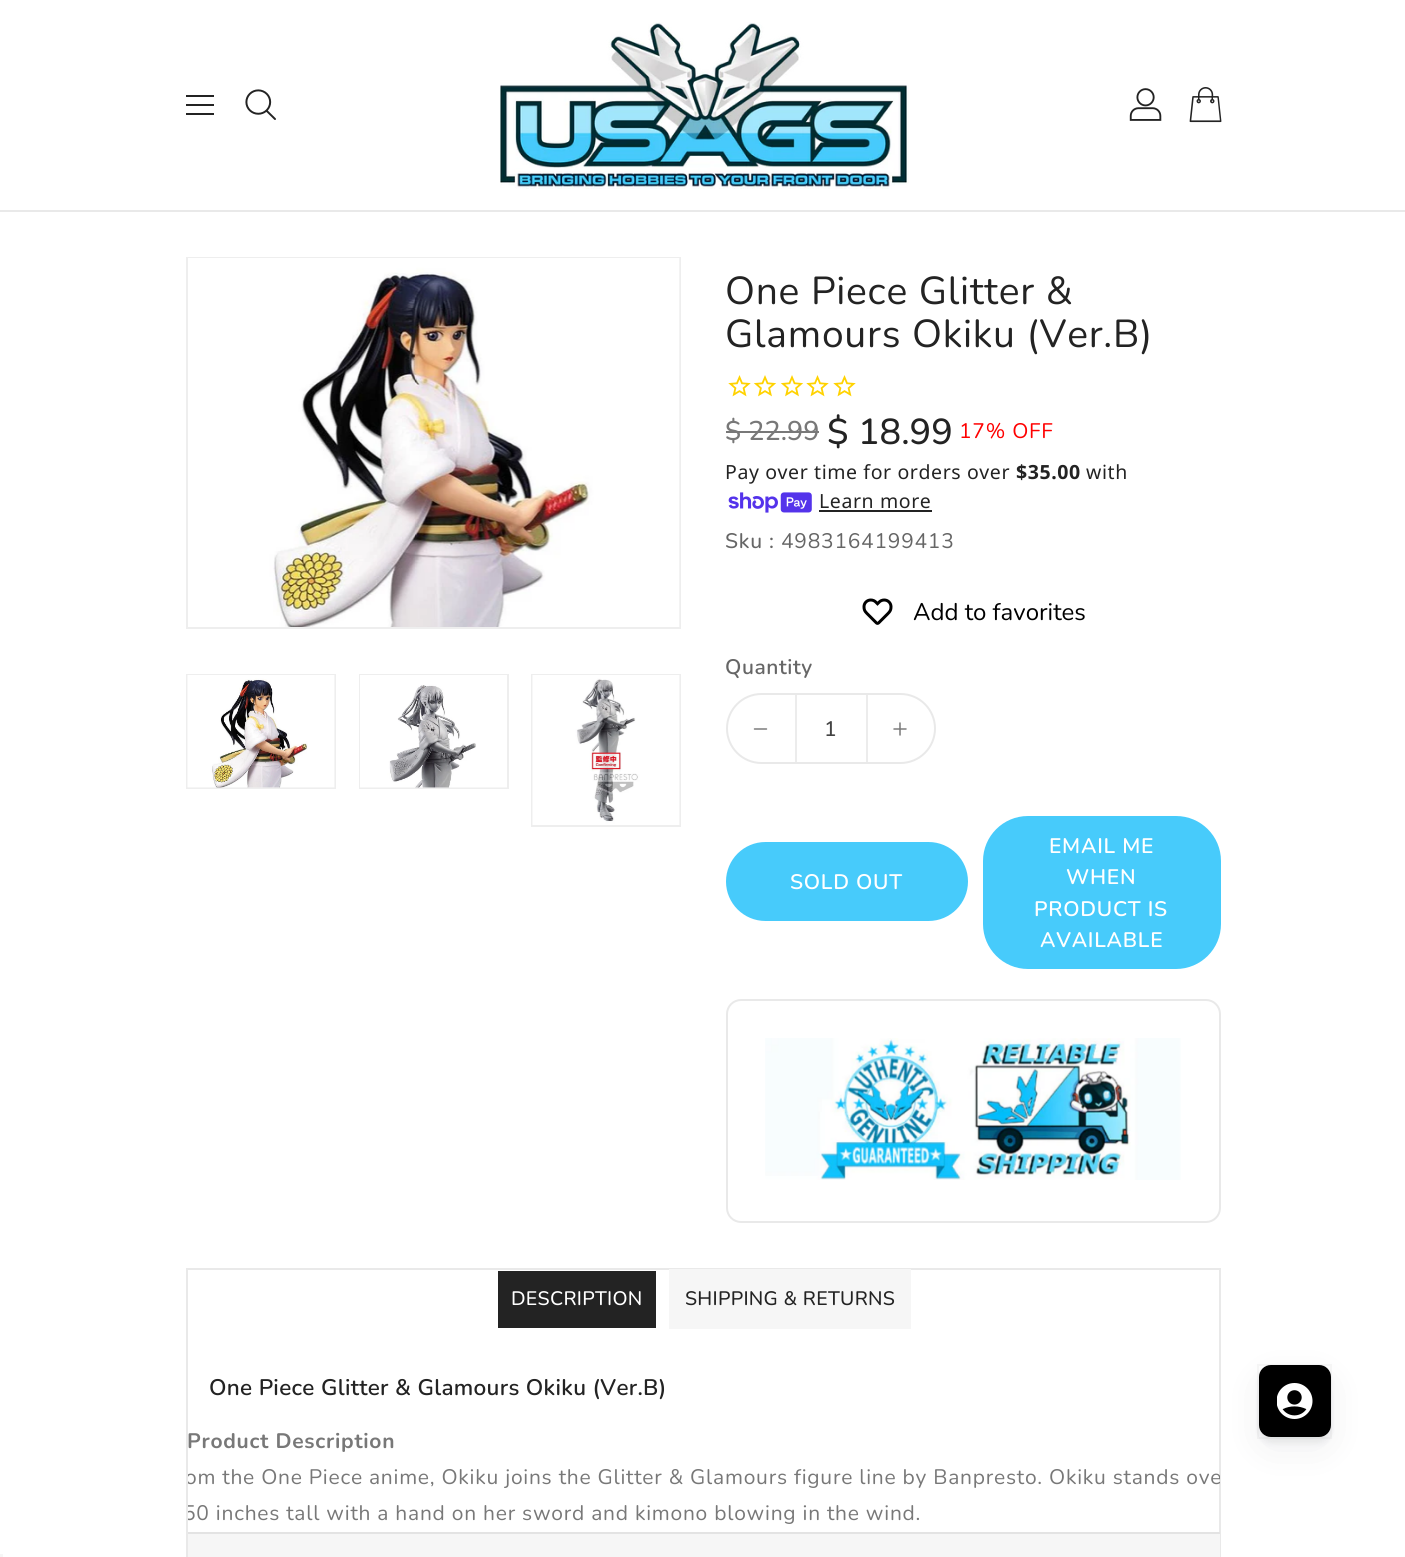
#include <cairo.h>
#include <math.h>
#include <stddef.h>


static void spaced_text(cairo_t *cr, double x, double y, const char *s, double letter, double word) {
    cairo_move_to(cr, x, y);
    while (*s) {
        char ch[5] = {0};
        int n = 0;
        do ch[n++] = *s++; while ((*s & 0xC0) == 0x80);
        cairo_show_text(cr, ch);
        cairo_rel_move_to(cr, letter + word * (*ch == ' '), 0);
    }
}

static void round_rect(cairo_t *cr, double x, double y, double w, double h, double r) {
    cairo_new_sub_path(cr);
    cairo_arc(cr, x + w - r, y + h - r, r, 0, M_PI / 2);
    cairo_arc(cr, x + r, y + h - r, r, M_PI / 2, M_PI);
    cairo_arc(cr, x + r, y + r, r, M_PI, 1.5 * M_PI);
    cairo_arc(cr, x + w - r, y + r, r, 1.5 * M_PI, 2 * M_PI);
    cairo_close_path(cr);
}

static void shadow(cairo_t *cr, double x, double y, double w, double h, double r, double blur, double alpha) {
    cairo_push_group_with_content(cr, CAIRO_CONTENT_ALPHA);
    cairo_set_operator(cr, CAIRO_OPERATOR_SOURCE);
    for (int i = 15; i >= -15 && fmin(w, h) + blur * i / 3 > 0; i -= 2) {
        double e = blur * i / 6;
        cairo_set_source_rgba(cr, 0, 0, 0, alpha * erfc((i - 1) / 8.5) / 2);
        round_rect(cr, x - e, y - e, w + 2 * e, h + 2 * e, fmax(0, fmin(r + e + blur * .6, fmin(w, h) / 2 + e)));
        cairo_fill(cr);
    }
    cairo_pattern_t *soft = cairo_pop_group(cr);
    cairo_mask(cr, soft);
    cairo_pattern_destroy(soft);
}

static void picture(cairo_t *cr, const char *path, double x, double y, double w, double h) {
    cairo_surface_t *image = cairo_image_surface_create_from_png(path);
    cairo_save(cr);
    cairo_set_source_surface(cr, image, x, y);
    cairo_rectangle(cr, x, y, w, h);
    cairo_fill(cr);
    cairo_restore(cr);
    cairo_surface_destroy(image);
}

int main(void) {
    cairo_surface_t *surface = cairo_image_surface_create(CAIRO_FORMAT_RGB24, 1405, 1557);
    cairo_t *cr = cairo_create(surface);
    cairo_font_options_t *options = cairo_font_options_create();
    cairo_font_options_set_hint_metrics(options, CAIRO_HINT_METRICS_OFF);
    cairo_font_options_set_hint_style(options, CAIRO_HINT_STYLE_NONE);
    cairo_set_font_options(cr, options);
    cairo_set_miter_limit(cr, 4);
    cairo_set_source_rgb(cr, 1, 1, 1);
    cairo_paint(cr);
    cairo_set_source_rgb(cr, 0.914, 0.914, 0.914);
    cairo_rectangle(cr, 0, 210, 1405, 2);
    cairo_fill(cr);
    cairo_set_source_rgb(cr, 0.137, 0.137, 0.137);
    cairo_rectangle(cr, 186, 95, 28, 2);
    cairo_fill(cr);
    cairo_rectangle(cr, 186, 104, 28, 2);
    cairo_fill(cr);
    cairo_rectangle(cr, 186, 113, 28, 2);
    cairo_fill(cr);
    picture(cr, "img1.png", 245, 89, 31, 31);
    picture(cr, "img2.png", 500, 22, 409, 167);
    picture(cr, "img3.png", 1129, 88, 33, 33);
    picture(cr, "img4.png", 1189, 87, 33, 36);
    cairo_rectangle(cr, 187, 258, 493, 370);
    cairo_set_source_rgb(cr, 0.933, 0.933, 0.933);
    cairo_stroke(cr);
    cairo_set_source_rgba(cr, 0.137, 0.137, 0.137, 0.1);
    cairo_rectangle(cr, 679, 258, 1, 369);
    cairo_fill(cr);
    picture(cr, "img5.png", 188, 258, 492, 369);
    cairo_rectangle(cr, 187, 675, 148, 113);
    cairo_set_source_rgb(cr, 0.933, 0.933, 0.933);
    cairo_stroke(cr);
    picture(cr, "img6.png", 187, 675, 148, 113);
    cairo_rectangle(cr, 360, 675, 148, 113);
    cairo_stroke(cr);
    picture(cr, "img7.png", 360, 675, 147, 113);
    cairo_rectangle(cr, 532, 675, 148, 151);
    cairo_stroke(cr);
    picture(cr, "img8.png", 532, 675, 148, 150);
    cairo_select_font_face(cr, "Nunito", CAIRO_FONT_SLANT_NORMAL, CAIRO_FONT_WEIGHT_NORMAL);
    cairo_set_font_size(cr, 39);
    cairo_set_source_rgb(cr, 0.137, 0.137, 0.137);
    spaced_text(cr, 725, 304, "One Piece Glitter &", 0.75, 0);
    spaced_text(cr, 725, 347, "Glamours Okiku (Ver.B)", 0.75, 0);
    picture(cr, "img9.png", 728, 375, 23, 22);
    picture(cr, "img10.png", 753, 375, 24, 22);
    picture(cr, "img10.png", 780, 375, 24, 22);
    picture(cr, "img9.png", 806, 375, 23, 22);
    picture(cr, "img9.png", 833, 375, 23, 22);
    cairo_select_font_face(cr, "Nunito Medium", CAIRO_FONT_SLANT_NORMAL, CAIRO_FONT_WEIGHT_NORMAL);
    cairo_set_font_size(cr, 27);
    cairo_set_source_rgb(cr, 0.471, 0.471, 0.471);
    cairo_move_to(cr, 725, 440);
    cairo_show_text(cr, "$ 22.99");
    cairo_rectangle(cr, 726, 431, 93, 2);
    cairo_fill(cr);
    cairo_set_font_size(cr, 36);
    cairo_set_source_rgb(cr, 0.137, 0.137, 0.137);
    cairo_move_to(cr, 827, 444);
    cairo_show_text(cr, "$ 18.99");
    cairo_select_font_face(cr, "Nunito", CAIRO_FONT_SLANT_NORMAL, CAIRO_FONT_WEIGHT_NORMAL);
    cairo_set_font_size(cr, 21);
    cairo_set_source_rgb(cr, 1, 0, 0);
    spaced_text(cr, 959, 438, "17% OFF", 0.75, 0);
    cairo_select_font_face(cr, "Noto Sans", CAIRO_FONT_SLANT_NORMAL, CAIRO_FONT_WEIGHT_NORMAL);
    cairo_set_font_size(cr, 19.5);
    cairo_set_source_rgb(cr, 0.137, 0.137, 0.137);
    spaced_text(cr, 725, 479, "Pay over time for orders over", 0.6, 0);
    cairo_select_font_face(cr, "Noto Sans", CAIRO_FONT_SLANT_NORMAL, CAIRO_FONT_WEIGHT_BOLD);
    spaced_text(cr, 1016, 479, "$35.00", 0.6, 0);
    cairo_select_font_face(cr, "Noto Sans", CAIRO_FONT_SLANT_NORMAL, CAIRO_FONT_WEIGHT_NORMAL);
    spaced_text(cr, 1086, 479, "with", 0.6, 0);
    picture(cr, "img11.png", 728, 492, 84, 21);
    spaced_text(cr, 819, 508, "Learn more", 0.6, 0);
    cairo_rectangle(cr, 819, 510, 113, 2);
    cairo_fill(cr);
    cairo_select_font_face(cr, "Nunito Medium", CAIRO_FONT_SLANT_NORMAL, CAIRO_FONT_WEIGHT_NORMAL);
    cairo_set_font_size(cr, 21);
    cairo_set_source_rgb(cr, 0.4, 0.4, 0.4);
    spaced_text(cr, 725, 548, "Sku :", 0.75, 0);
    cairo_select_font_face(cr, "Nunito", CAIRO_FONT_SLANT_NORMAL, CAIRO_FONT_WEIGHT_NORMAL);
    spaced_text(cr, 781, 548, "4983164199413", 0.75, 0);
    picture(cr, "img12.png", 862, 598, 31, 27);
    cairo_set_font_size(cr, 24);
    cairo_set_source_rgb(cr, 0, 0, 0);
    cairo_move_to(cr, 913, 620);
    cairo_show_text(cr, "Add to favorites");
    cairo_select_font_face(cr, "Nunito SemiBold", CAIRO_FONT_SLANT_NORMAL, CAIRO_FONT_WEIGHT_NORMAL);
    cairo_set_font_size(cr, 21);
    cairo_set_source_rgb(cr, 0.4, 0.4, 0.4);
    spaced_text(cr, 725, 674, "Quantity", 0.6, 0);
    round_rect(cr, 727, 694, 208, 69, 34.5);
    cairo_set_source_rgb(cr, 0.914, 0.914, 0.914);
    cairo_stroke(cr);
    picture(cr, "img13.png", 753, 728, 15, 2);
    cairo_set_source_rgb(cr, 0.925, 0.925, 0.925);
    cairo_rectangle(cr, 866, 695, 2, 67);
    cairo_fill(cr);
    cairo_rectangle(cr, 795, 695, 2, 67);
    cairo_fill(cr);
    cairo_select_font_face(cr, "Nunito Medium", CAIRO_FONT_SLANT_NORMAL, CAIRO_FONT_WEIGHT_NORMAL);
    cairo_set_source_rgb(cr, 0.267, 0.267, 0.267);
    cairo_move_to(cr, 824, 736);
    cairo_show_text(cr, "1");
    picture(cr, "img14.png", 893, 722, 14, 14);
    cairo_set_source_rgb(cr, 0.278, 0.796, 0.984);
    round_rect(cr, 727, 843, 240, 77, 38.5);
    cairo_fill_preserve(cr);
    cairo_stroke(cr);
    cairo_select_font_face(cr, "Nunito SemiBold", CAIRO_FONT_SLANT_NORMAL, CAIRO_FONT_WEIGHT_NORMAL);
    cairo_set_source_rgb(cr, 1, 1, 1);
    spaced_text(cr, 790, 889, "SOLD OUT", 0.75, 0);
    cairo_set_source_rgb(cr, 0.278, 0.796, 0.984);
    round_rect(cr, 984, 817, 236, 151, 44);
    cairo_fill_preserve(cr);
    cairo_stroke(cr);
    cairo_set_source_rgb(cr, 1, 1, 1);
    spaced_text(cr, 1049, 853, "EMAIL ME", 0.75, 0);
    spaced_text(cr, 1066, 884, "WHEN", 0.75, 0);
    spaced_text(cr, 1034, 916, "PRODUCT IS", 0.75, 0);
    spaced_text(cr, 1040, 947, "AVAILABLE", 0.75, 0);
    round_rect(cr, 727, 1000, 493, 222, 14);
    cairo_set_source_rgb(cr, 0.914, 0.914, 0.914);
    cairo_stroke(cr);
    picture(cr, "img15.png", 765, 1038, 416, 142);
    cairo_rectangle(cr, 187, 1269, 1033, 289);
    cairo_stroke(cr);
    cairo_set_source_rgb(cr, 0.137, 0.137, 0.137);
    cairo_rectangle(cr, 498, 1271, 158, 57);
    cairo_fill(cr);
    cairo_select_font_face(cr, "Nunito Medium", CAIRO_FONT_SLANT_NORMAL, CAIRO_FONT_WEIGHT_NORMAL);
    cairo_set_font_size(cr, 19.5);
    cairo_set_source_rgb(cr, 1, 1, 1);
    spaced_text(cr, 511, 1305, "DESCRIPTION", 0.3, 0);
    cairo_set_source_rgb(cr, 0.961, 0.961, 0.961);
    cairo_rectangle(cr, 669, 1269, 242, 60);
    cairo_fill(cr);
    cairo_set_source_rgb(cr, 0.137, 0.137, 0.137);
    spaced_text(cr, 685, 1305, "SHIPPING & RETURNS", 0.3, 0);
    cairo_select_font_face(cr, "Nunito SemiBold", CAIRO_FONT_SLANT_NORMAL, CAIRO_FONT_WEIGHT_NORMAL);
    cairo_set_font_size(cr, 22.5);
    spaced_text(cr, 209, 1395, "One Piece Glitter & Glamours Okiku (Ver.B)", 0.3, 0);
    cairo_select_font_face(cr, "Nunito", CAIRO_FONT_SLANT_NORMAL, CAIRO_FONT_WEIGHT_BOLD);
    cairo_set_font_size(cr, 21);
    cairo_set_source_rgb(cr, 0.471, 0.471, 0.471);
    spaced_text(cr, 187, 1448, "Product Description", 0.75, 0);
    cairo_save(cr);
    cairo_rectangle(cr, 188, 1352, 1032, 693);
    cairo_clip(cr);
    cairo_select_font_face(cr, "Nunito", CAIRO_FONT_SLANT_NORMAL, CAIRO_FONT_WEIGHT_NORMAL);
    spaced_text(cr, 185, 1484, "om the One Piece anime, Okiku joins the Glitter & Glamours figure line by Banpresto. Okiku stands ove", 0.75, 0);
    spaced_text(cr, 183, 1520, "50 inches tall with a hand on her sword and kimono blowing in the wind.", 0.75, 0);
    cairo_restore(cr);
    cairo_set_source_rgb(cr, 0.961, 0.961, 0.961);
    cairo_rectangle(cr, 188, 1534, 1032, 23);
    cairo_fill(cr);
    cairo_save(cr);
    cairo_rectangle(cr, 188, 1352, 1032, 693);
    cairo_clip(cr);
    round_rect(cr, 166, 1533, 1075, 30, 4);
    cairo_set_source_rgb(cr, 0.89, 0.89, 0.89);
    cairo_stroke(cr);
    cairo_restore(cr);
    cairo_set_source_rgb(cr, 0.216, 0.247, 0.278);
    shadow(cr, 1259, 1377, 72, 72, 12, 18, 0.08);
    shadow(cr, 1259, 1371, 72, 72, 12, 3, 0.08);
    cairo_rectangle(cr, 1258, 1365, 73, 73);
    cairo_set_source_rgba(cr, 0.216, 0.247, 0.278, 0.04);
    cairo_stroke(cr);
    cairo_set_source_rgb(cr, 0, 0, 0);
    round_rect(cr, 1259, 1365, 72, 72, 12);
    cairo_fill(cr);
    picture(cr, "img16.png", 1277, 1383, 36, 36);
    cairo_set_source_rgb(cr, 0.961, 0.961, 0.961);
    cairo_rectangle(cr, 0, 1554, 3, 3);
    cairo_fill(cr);
    cairo_surface_write_to_png(surface, "page.png");
    cairo_font_options_destroy(options);
    cairo_destroy(cr);
    cairo_surface_destroy(surface);
    return 0;
}
